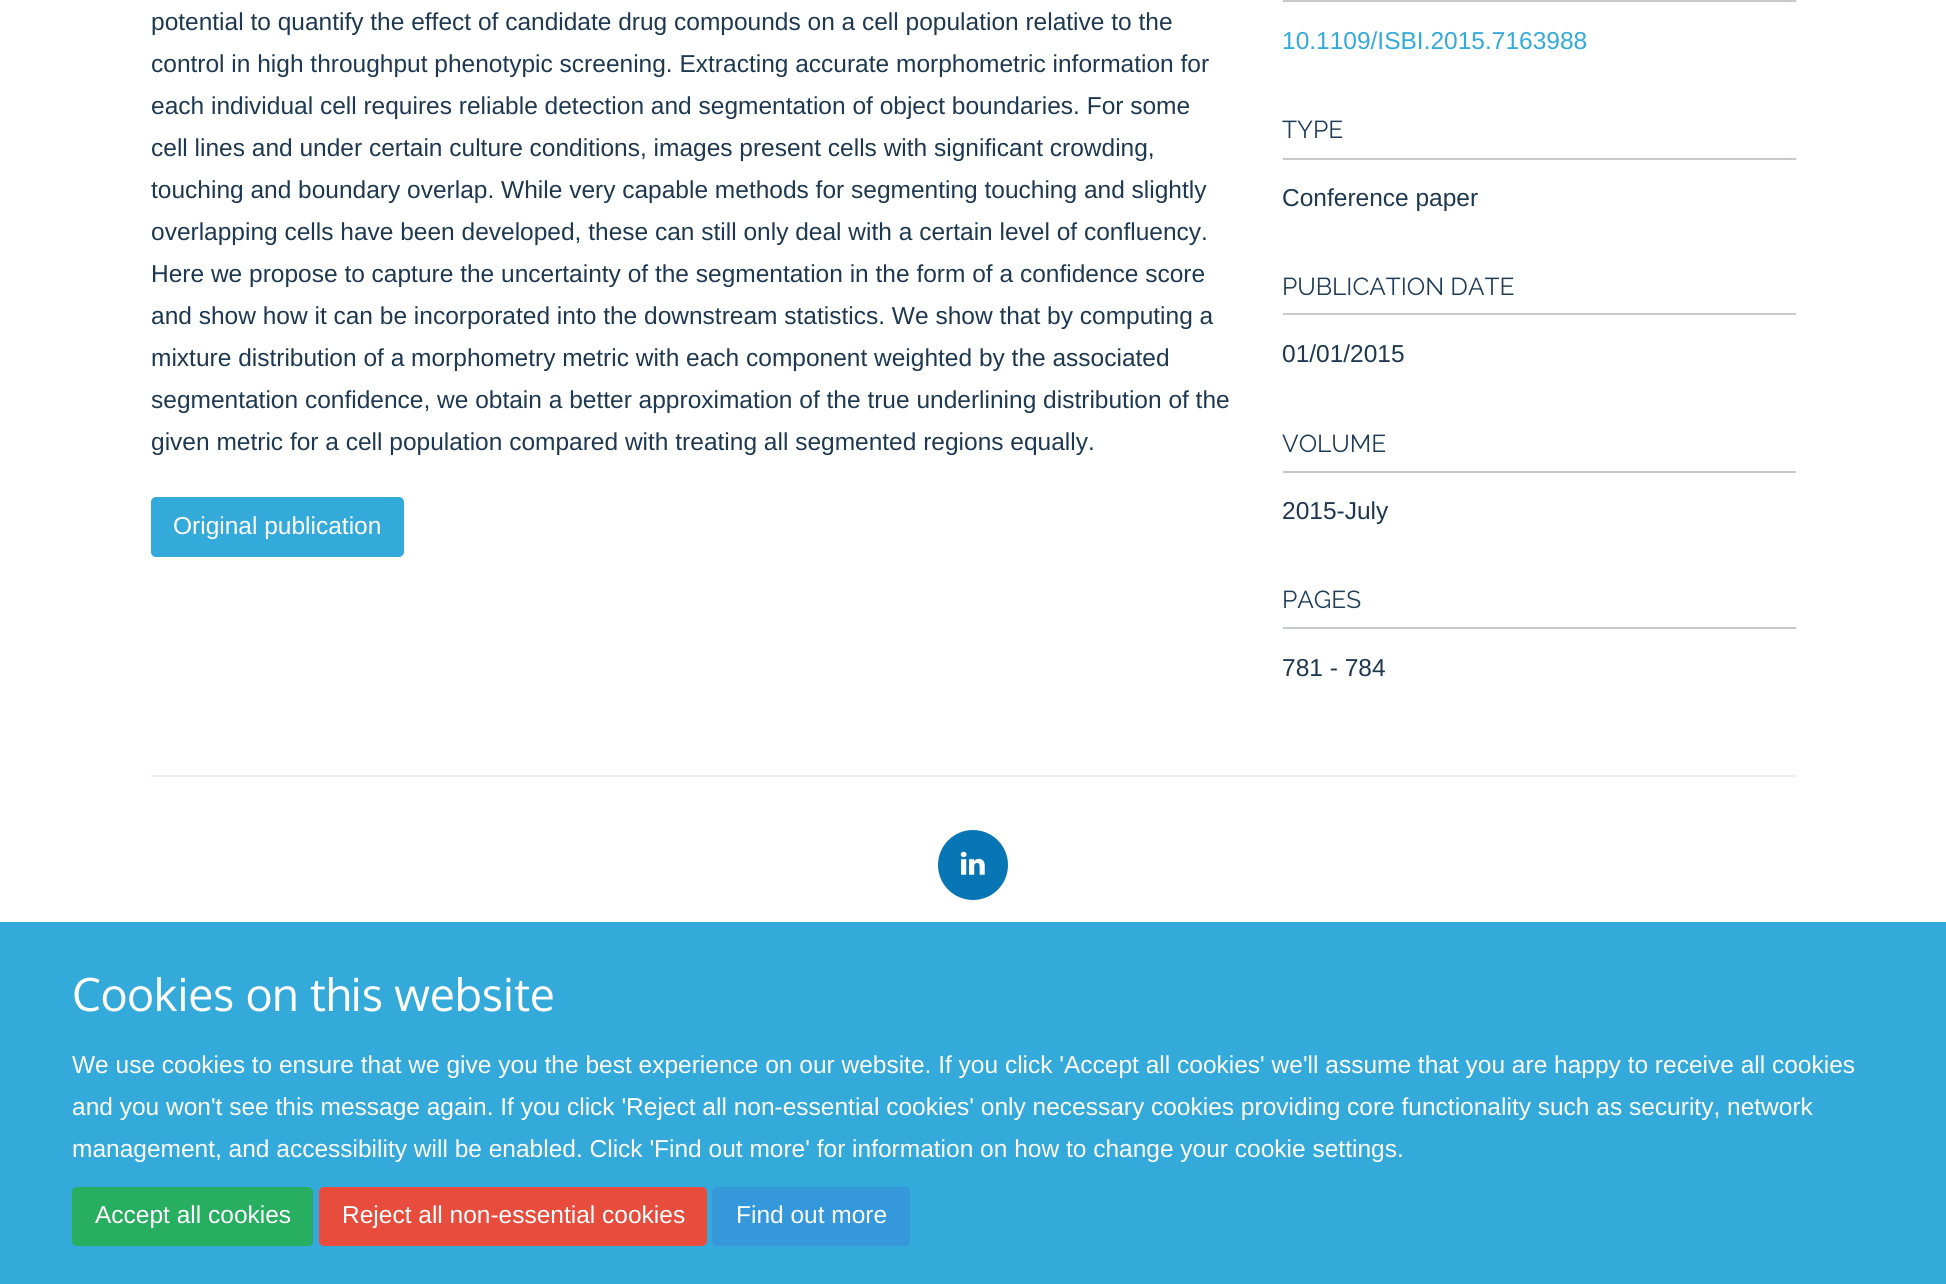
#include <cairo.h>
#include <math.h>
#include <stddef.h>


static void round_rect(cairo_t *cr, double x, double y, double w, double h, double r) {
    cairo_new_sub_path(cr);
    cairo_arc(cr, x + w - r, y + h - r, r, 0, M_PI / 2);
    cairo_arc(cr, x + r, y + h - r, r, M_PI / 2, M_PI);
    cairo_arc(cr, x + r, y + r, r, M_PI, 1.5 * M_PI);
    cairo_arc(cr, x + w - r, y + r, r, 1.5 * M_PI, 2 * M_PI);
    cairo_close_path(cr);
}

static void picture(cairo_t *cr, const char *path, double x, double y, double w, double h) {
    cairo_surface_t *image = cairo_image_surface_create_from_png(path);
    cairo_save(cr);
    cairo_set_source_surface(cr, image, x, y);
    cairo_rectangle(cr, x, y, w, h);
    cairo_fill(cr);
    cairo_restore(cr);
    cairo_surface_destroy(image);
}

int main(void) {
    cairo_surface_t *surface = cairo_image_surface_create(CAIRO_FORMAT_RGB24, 1946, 1284);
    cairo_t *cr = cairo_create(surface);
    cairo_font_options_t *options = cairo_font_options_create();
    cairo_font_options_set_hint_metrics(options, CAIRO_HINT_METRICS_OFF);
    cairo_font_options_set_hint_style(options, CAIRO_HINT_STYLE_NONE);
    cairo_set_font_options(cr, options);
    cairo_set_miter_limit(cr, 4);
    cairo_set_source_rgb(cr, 1, 1, 1);
    cairo_paint(cr);
    cairo_select_font_face(cr, "Liberation Sans", CAIRO_FONT_SLANT_NORMAL, CAIRO_FONT_WEIGHT_NORMAL);
    cairo_set_font_size(cr, 24.5);
    cairo_set_source_rgb(cr, 0.114, 0.22, 0.314);
    cairo_move_to(cr, 151, 30);
    cairo_show_text(cr, "potential to quantify the effect of candidate drug compounds on a cell population relative to the");
    cairo_move_to(cr, 151, 72);
    cairo_show_text(cr, "control in high throughput phenotypic screening. Extracting accurate morphometric information for");
    cairo_move_to(cr, 151, 114);
    cairo_show_text(cr, "each individual cell requires reliable detection and segmentation of object boundaries. For some");
    cairo_move_to(cr, 151, 156);
    cairo_show_text(cr, "cell lines and under certain culture conditions, images present cells with significant crowding,");
    cairo_move_to(cr, 151, 198);
    cairo_show_text(cr, "touching and boundary overlap. While very capable methods for segmenting touching and slightly");
    cairo_move_to(cr, 151, 240);
    cairo_show_text(cr, "overlapping cells have been developed, these can still only deal with a certain level of confluency.");
    cairo_move_to(cr, 151, 282);
    cairo_show_text(cr, "Here we propose to capture the uncertainty of the segmentation in the form of a confidence score");
    cairo_move_to(cr, 151, 324);
    cairo_show_text(cr, "and show how it can be incorporated into the downstream statistics. We show that by computing a");
    cairo_move_to(cr, 151, 366);
    cairo_show_text(cr, "mixture distribution of a morphometry metric with each component weighted by the associated");
    cairo_move_to(cr, 151, 408);
    cairo_show_text(cr, "segmentation confidence, we obtain a better approximation of the true underlining distribution of the");
    cairo_move_to(cr, 151, 450);
    cairo_show_text(cr, "given metric for a cell population compared with treating all segmented regions equally.");
    cairo_set_source_rgb(cr, 0.204, 0.667, 0.859);
    round_rect(cr, 152, 498, 251, 58, 4);
    cairo_fill_preserve(cr);
    cairo_stroke(cr);
    cairo_set_source_rgb(cr, 1, 1, 1);
    cairo_move_to(cr, 173, 534);
    cairo_show_text(cr, "Original publication");
    cairo_set_source_rgb(cr, 0.776, 0.792, 0.812);
    cairo_rectangle(cr, 1283, 0, 513, 2);
    cairo_fill(cr);
    cairo_set_source_rgb(cr, 0.204, 0.667, 0.859);
    cairo_move_to(cr, 1282, 49);
    cairo_show_text(cr, "10.1109/ISBI.2015.7163988");
    cairo_set_source_rgb(cr, 0.776, 0.792, 0.812);
    cairo_rectangle(cr, 1283, 158, 513, 2);
    cairo_fill(cr);
    cairo_select_font_face(cr, "Raleway Thin", CAIRO_FONT_SLANT_NORMAL, CAIRO_FONT_WEIGHT_NORMAL);
    cairo_set_source_rgb(cr, 0.125, 0.243, 0.345);
    cairo_move_to(cr, 1282, 138);
    cairo_show_text(cr, "TYPE");
    cairo_select_font_face(cr, "Liberation Sans", CAIRO_FONT_SLANT_NORMAL, CAIRO_FONT_WEIGHT_NORMAL);
    cairo_set_source_rgb(cr, 0.114, 0.22, 0.314);
    cairo_move_to(cr, 1282, 206);
    cairo_show_text(cr, "Conference paper");
    cairo_set_source_rgb(cr, 0.776, 0.792, 0.812);
    cairo_rectangle(cr, 1283, 313, 513, 2);
    cairo_fill(cr);
    cairo_select_font_face(cr, "Raleway Thin", CAIRO_FONT_SLANT_NORMAL, CAIRO_FONT_WEIGHT_NORMAL);
    cairo_set_source_rgb(cr, 0.125, 0.243, 0.345);
    cairo_move_to(cr, 1282, 295);
    cairo_show_text(cr, "PUBLICATION DATE");
    cairo_select_font_face(cr, "Liberation Sans", CAIRO_FONT_SLANT_NORMAL, CAIRO_FONT_WEIGHT_NORMAL);
    cairo_set_source_rgb(cr, 0.114, 0.22, 0.314);
    cairo_move_to(cr, 1282, 362);
    cairo_show_text(cr, "01/01/2015");
    cairo_set_source_rgb(cr, 0.776, 0.792, 0.812);
    cairo_rectangle(cr, 1283, 471, 513, 2);
    cairo_fill(cr);
    cairo_select_font_face(cr, "Raleway Thin", CAIRO_FONT_SLANT_NORMAL, CAIRO_FONT_WEIGHT_NORMAL);
    cairo_set_source_rgb(cr, 0.125, 0.243, 0.345);
    cairo_move_to(cr, 1282, 452);
    cairo_show_text(cr, "VOLUME");
    cairo_select_font_face(cr, "Liberation Sans", CAIRO_FONT_SLANT_NORMAL, CAIRO_FONT_WEIGHT_NORMAL);
    cairo_set_source_rgb(cr, 0.114, 0.22, 0.314);
    cairo_move_to(cr, 1282, 519);
    cairo_show_text(cr, "2015-July");
    cairo_set_source_rgb(cr, 0.776, 0.792, 0.812);
    cairo_rectangle(cr, 1283, 627, 513, 2);
    cairo_fill(cr);
    cairo_select_font_face(cr, "Raleway Thin", CAIRO_FONT_SLANT_NORMAL, CAIRO_FONT_WEIGHT_NORMAL);
    cairo_set_source_rgb(cr, 0.125, 0.243, 0.345);
    cairo_move_to(cr, 1282, 608);
    cairo_show_text(cr, "PAGES");
    cairo_select_font_face(cr, "Liberation Sans", CAIRO_FONT_SLANT_NORMAL, CAIRO_FONT_WEIGHT_NORMAL);
    cairo_set_source_rgb(cr, 0.114, 0.22, 0.314);
    cairo_move_to(cr, 1282, 676);
    cairo_show_text(cr, "781 - 784");
    cairo_set_source_rgb(cr, 0.933, 0.933, 0.933);
    cairo_rectangle(cr, 151, 775, 1645, 2);
    cairo_fill(cr);
    cairo_set_source_rgb(cr, 0.035, 0.463, 0.706);
    cairo_arc(cr, 973, 865, 35, 0, 2 * M_PI);
    cairo_fill(cr);
    picture(cr, "img1.png", 960, 851, 25, 24);
    cairo_set_source_rgb(cr, 0.204, 0.667, 0.859);
    cairo_rectangle(cr, 0, 922, 1946, 362);
    cairo_fill(cr);
    cairo_select_font_face(cr, "Oxygen", CAIRO_FONT_SLANT_NORMAL, CAIRO_FONT_WEIGHT_NORMAL);
    cairo_set_font_size(cr, 45.5);
    cairo_set_source_rgb(cr, 1, 1, 1);
    cairo_move_to(cr, 72, 1011);
    cairo_show_text(cr, "Cookies on this website");
    cairo_select_font_face(cr, "Liberation Sans", CAIRO_FONT_SLANT_NORMAL, CAIRO_FONT_WEIGHT_NORMAL);
    cairo_set_font_size(cr, 24.5);
    cairo_move_to(cr, 72, 1073);
    cairo_show_text(cr, "We use cookies to ensure that we give you the best experience on our website. If you click 'Accept all cookies' we'll assume that you are happy to receive all cookies");
    cairo_move_to(cr, 72, 1115);
    cairo_show_text(cr, "and you won't see this message again. If you click 'Reject all non-essential cookies' only necessary cookies providing core functionality such as security, network");
    cairo_move_to(cr, 72, 1157);
    cairo_show_text(cr, "management, and accessibility will be enabled. Click 'Find out more' for information on how to change your cookie settings.");
    cairo_set_source_rgb(cr, 0.153, 0.682, 0.376);
    round_rect(cr, 73, 1188, 239, 57, 4);
    cairo_fill_preserve(cr);
    cairo_stroke(cr);
    cairo_set_source_rgb(cr, 1, 1, 1);
    cairo_move_to(cr, 95, 1223);
    cairo_show_text(cr, "Accept all cookies");
    cairo_set_source_rgb(cr, 0.906, 0.298, 0.235);
    round_rect(cr, 320, 1188, 386, 57, 4);
    cairo_fill_preserve(cr);
    cairo_stroke(cr);
    cairo_set_source_rgb(cr, 1, 1, 1);
    cairo_move_to(cr, 342, 1223);
    cairo_show_text(cr, "Reject all non-essential cookies");
    cairo_set_source_rgb(cr, 0.204, 0.596, 0.859);
    round_rect(cr, 713, 1188, 196, 57, 4);
    cairo_fill_preserve(cr);
    cairo_stroke(cr);
    cairo_set_source_rgb(cr, 1, 1, 1);
    cairo_move_to(cr, 736, 1223);
    cairo_show_text(cr, "Find out more");
    cairo_surface_write_to_png(surface, "page.png");
    cairo_font_options_destroy(options);
    cairo_destroy(cr);
    cairo_surface_destroy(surface);
    return 0;
}
